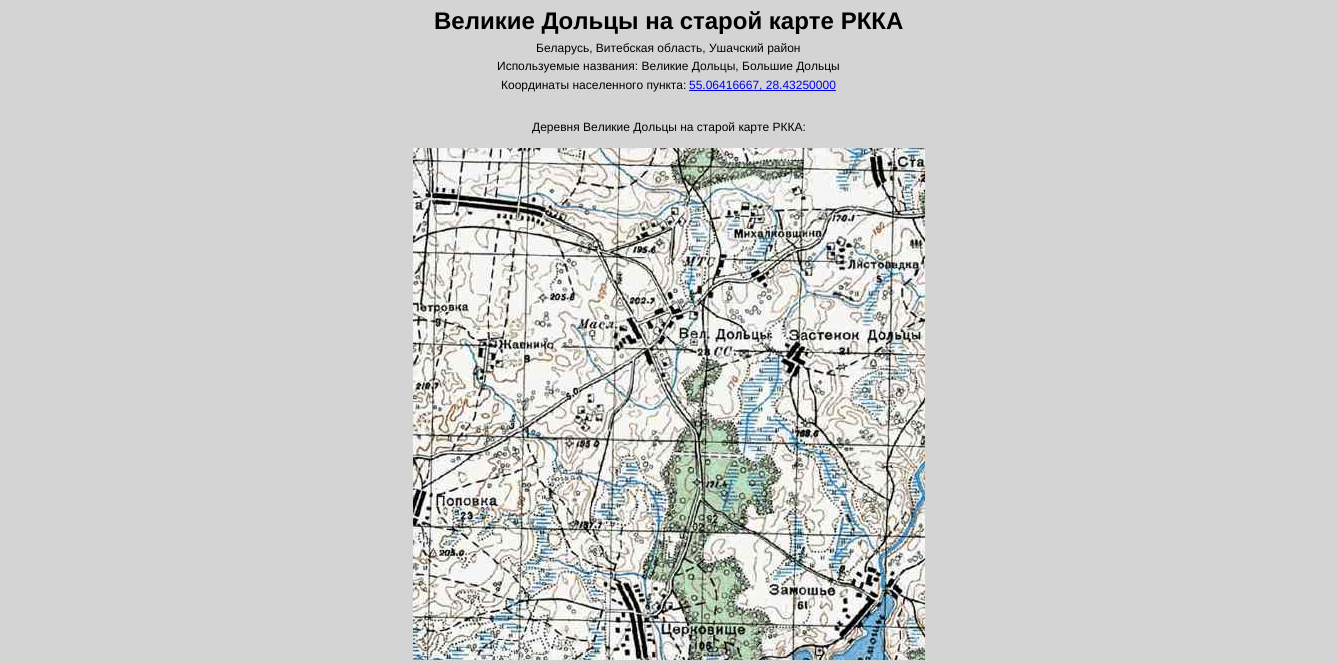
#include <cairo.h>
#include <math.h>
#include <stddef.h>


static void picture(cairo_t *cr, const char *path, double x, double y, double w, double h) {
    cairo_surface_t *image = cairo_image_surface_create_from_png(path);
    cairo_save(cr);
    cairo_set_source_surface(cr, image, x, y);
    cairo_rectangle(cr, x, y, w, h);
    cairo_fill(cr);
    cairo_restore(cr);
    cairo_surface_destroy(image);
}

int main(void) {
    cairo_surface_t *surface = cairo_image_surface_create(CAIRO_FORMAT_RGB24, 1337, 664);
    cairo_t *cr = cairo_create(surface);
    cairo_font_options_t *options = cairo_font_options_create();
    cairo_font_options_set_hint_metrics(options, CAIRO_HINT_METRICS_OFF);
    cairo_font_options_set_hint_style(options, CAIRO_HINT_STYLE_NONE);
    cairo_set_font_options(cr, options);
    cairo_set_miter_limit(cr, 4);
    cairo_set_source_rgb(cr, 0.831, 0.831, 0.831);
    cairo_paint(cr);
    cairo_select_font_face(cr, "Liberation Sans", CAIRO_FONT_SLANT_NORMAL, CAIRO_FONT_WEIGHT_BOLD);
    cairo_set_font_size(cr, 24);
    cairo_set_source_rgb(cr, 0, 0, 0);
    cairo_move_to(cr, 434, 29);
    cairo_show_text(cr, "Великие Дольцы на старой карте РККА");
    cairo_select_font_face(cr, "Liberation Sans", CAIRO_FONT_SLANT_NORMAL, CAIRO_FONT_WEIGHT_NORMAL);
    cairo_set_font_size(cr, 12);
    cairo_move_to(cr, 536, 52);
    cairo_show_text(cr, "Беларусь, Витебская область, Ушачский район");
    cairo_move_to(cr, 497, 70);
    cairo_show_text(cr, "Используемые названия: Великие Дольцы, Большие Дольцы");
    cairo_move_to(cr, 501, 89);
    cairo_show_text(cr, "Координаты населенного пункта:");
    cairo_set_source_rgb(cr, 0, 0, 0.933);
    cairo_rectangle(cr, 689, 90, 147, 1);
    cairo_fill(cr);
    cairo_move_to(cr, 689, 89);
    cairo_show_text(cr, "55.06416667, 28.43250000");
    cairo_set_source_rgb(cr, 0, 0, 0);
    cairo_move_to(cr, 532, 131);
    cairo_show_text(cr, "Деревня Великие Дольцы на старой карте РККА:");
    picture(cr, "img1.png", 413, 148, 256, 256);
    picture(cr, "img2.png", 669, 148, 256, 256);
    picture(cr, "img3.png", 413, 404, 256, 256);
    picture(cr, "img4.png", 669, 404, 256, 256);
    cairo_surface_write_to_png(surface, "page.png");
    cairo_font_options_destroy(options);
    cairo_destroy(cr);
    cairo_surface_destroy(surface);
    return 0;
}
